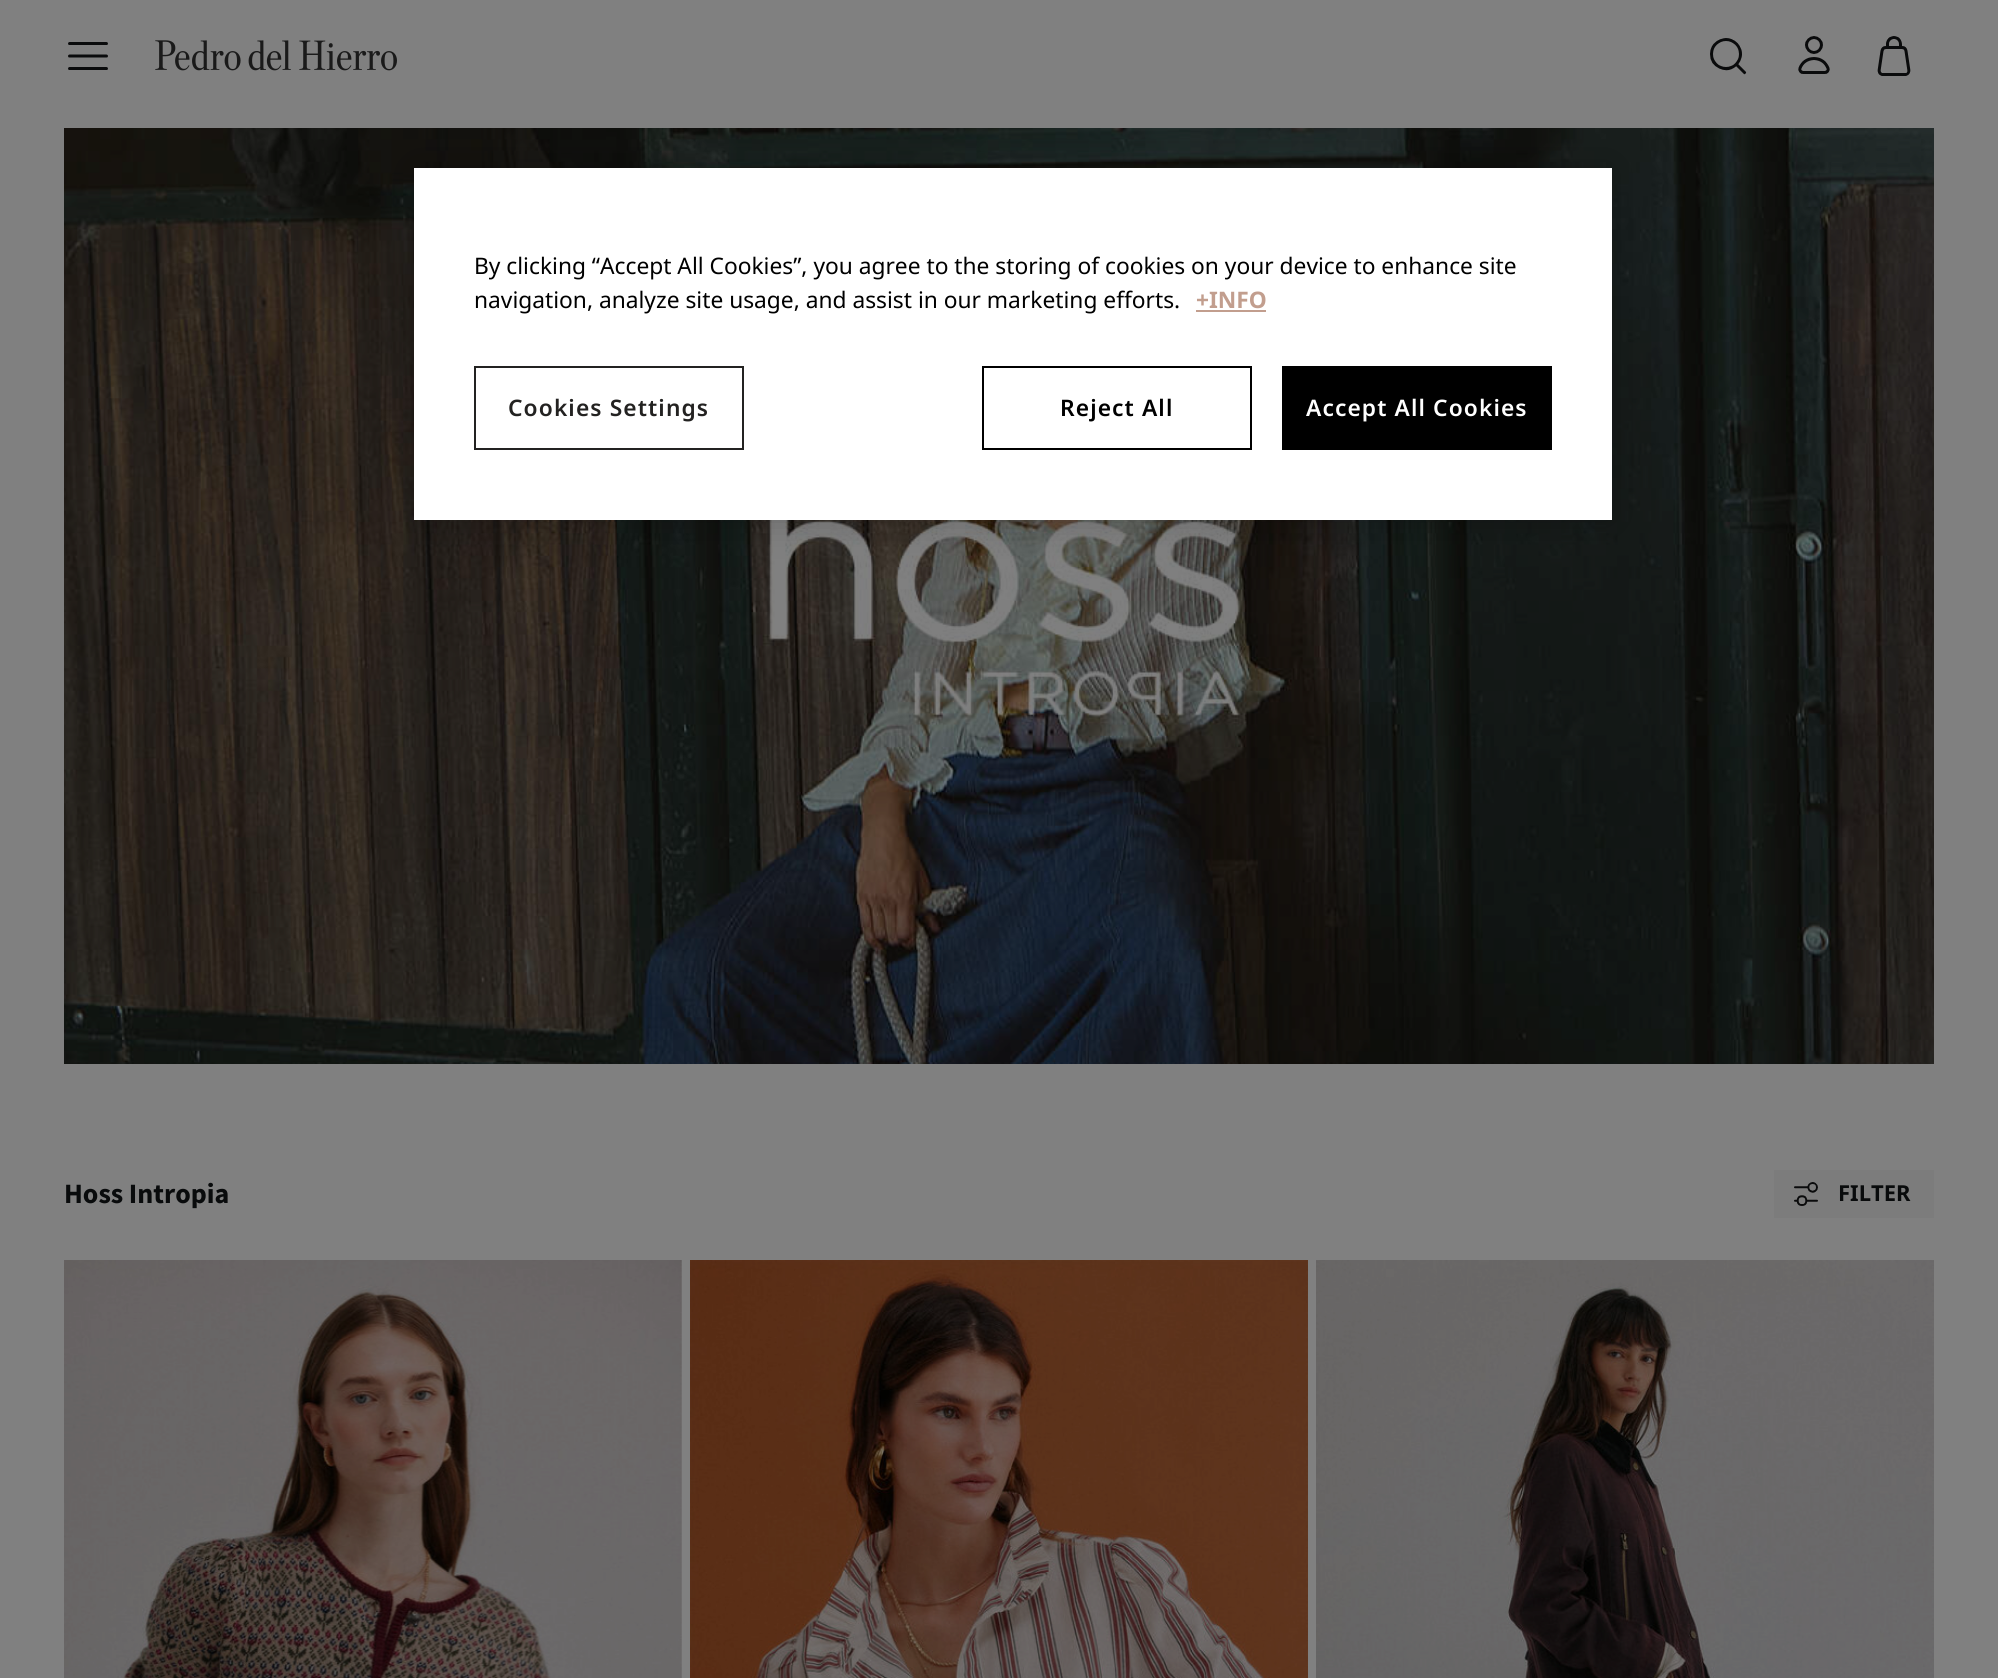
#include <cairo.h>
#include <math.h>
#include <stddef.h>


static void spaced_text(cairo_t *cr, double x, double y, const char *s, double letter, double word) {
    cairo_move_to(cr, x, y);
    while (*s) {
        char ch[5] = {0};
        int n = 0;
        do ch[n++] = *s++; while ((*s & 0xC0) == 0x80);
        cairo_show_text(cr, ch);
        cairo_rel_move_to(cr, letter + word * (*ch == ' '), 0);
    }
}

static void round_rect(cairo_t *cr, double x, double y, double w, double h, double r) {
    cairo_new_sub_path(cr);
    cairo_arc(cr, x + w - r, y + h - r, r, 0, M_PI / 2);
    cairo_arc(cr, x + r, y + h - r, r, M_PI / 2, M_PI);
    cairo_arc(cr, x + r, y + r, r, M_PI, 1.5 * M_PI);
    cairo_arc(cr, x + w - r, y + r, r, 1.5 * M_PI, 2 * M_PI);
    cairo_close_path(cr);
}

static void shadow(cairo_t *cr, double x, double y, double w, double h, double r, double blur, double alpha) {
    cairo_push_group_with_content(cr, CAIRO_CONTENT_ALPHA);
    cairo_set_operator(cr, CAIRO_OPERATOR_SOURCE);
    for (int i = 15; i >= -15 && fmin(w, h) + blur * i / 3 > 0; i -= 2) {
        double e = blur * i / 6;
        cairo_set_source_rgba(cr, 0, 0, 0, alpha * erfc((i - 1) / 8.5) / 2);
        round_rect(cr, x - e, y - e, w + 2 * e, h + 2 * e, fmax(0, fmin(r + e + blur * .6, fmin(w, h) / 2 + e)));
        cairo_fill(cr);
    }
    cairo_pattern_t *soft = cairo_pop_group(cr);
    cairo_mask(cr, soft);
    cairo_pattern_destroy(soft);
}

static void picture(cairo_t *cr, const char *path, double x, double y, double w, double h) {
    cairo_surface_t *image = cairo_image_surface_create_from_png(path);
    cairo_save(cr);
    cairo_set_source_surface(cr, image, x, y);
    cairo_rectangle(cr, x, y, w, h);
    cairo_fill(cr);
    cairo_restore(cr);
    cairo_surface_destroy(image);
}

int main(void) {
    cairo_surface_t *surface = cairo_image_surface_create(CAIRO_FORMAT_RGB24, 1998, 1678);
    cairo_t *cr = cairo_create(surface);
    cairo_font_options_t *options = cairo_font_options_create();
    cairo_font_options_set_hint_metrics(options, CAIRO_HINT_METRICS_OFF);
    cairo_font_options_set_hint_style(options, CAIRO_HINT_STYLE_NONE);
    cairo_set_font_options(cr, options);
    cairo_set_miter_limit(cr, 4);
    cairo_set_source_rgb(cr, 0.502, 0.502, 0.502);
    cairo_paint(cr);
    picture(cr, "img6.png", 64, 128, 1870, 936);
    cairo_set_source_rgb(cr, 0, 0, 0);
    shadow(cr, 414, 168, 1198, 352, 0, 18, 0.2);
    cairo_set_source_rgb(cr, 1, 1, 1);
    cairo_rectangle(cr, 414, 168, 1198, 352);
    cairo_fill(cr);
    cairo_select_font_face(cr, "Noto Sans", CAIRO_FONT_SLANT_NORMAL, CAIRO_FONT_WEIGHT_NORMAL);
    cairo_set_font_size(cr, 22.75);
    cairo_set_source_rgb(cr, 0, 0, 0);
    cairo_move_to(cr, 474, 274);
    cairo_show_text(cr, "By clicking “Accept All Cookies”, you agree to the storing of cookies on your device to enhance site");
    cairo_move_to(cr, 474, 308);
    cairo_show_text(cr, "navigation, analyze site usage, and assist in our marketing efforts.");
    cairo_select_font_face(cr, "Noto Sans", CAIRO_FONT_SLANT_NORMAL, CAIRO_FONT_WEIGHT_BOLD);
    cairo_set_source_rgb(cr, 0.761, 0.62, 0.557);
    cairo_move_to(cr, 1196, 308);
    cairo_show_text(cr, "+INFO");
    cairo_rectangle(cr, 1196, 310, 70, 2);
    cairo_fill(cr);
    cairo_rectangle(cr, 475, 367, 268, 82);
    cairo_set_source_rgb(cr, 0.137, 0.133, 0.129);
    cairo_stroke(cr);
    cairo_select_font_face(cr, "Noto Sans SemiBold", CAIRO_FONT_SLANT_NORMAL, CAIRO_FONT_WEIGHT_NORMAL);
    spaced_text(cr, 508, 416, "Cookies Settings", 1.1, 0);
    cairo_rectangle(cr, 983, 367, 268, 82);
    cairo_set_source_rgb(cr, 0, 0, 0);
    cairo_stroke(cr);
    spaced_text(cr, 1060, 416, "Reject All", 1.1, 0);
    cairo_rectangle(cr, 1282, 366, 270, 84);
    cairo_fill(cr);
    cairo_set_source_rgb(cr, 1, 1, 1);
    spaced_text(cr, 1306, 416, "Accept All Cookies", 1.1, 0);
    picture(cr, "img1.png", 68, 42, 40, 28);
    picture(cr, "img2.png", 155, 40, 242, 31);
    picture(cr, "img3.png", 1710, 38, 37, 37);
    picture(cr, "img4.png", 1798, 36, 32, 38);
    picture(cr, "img5.png", 1877, 36, 34, 40);
    cairo_select_font_face(cr, "Source Sans Pro", CAIRO_FONT_SLANT_NORMAL, CAIRO_FONT_WEIGHT_BOLD);
    cairo_set_font_size(cr, 28);
    cairo_set_source_rgb(cr, 0.039, 0.043, 0.047);
    cairo_move_to(cr, 64, 1203);
    cairo_show_text(cr, "Hoss Intropia");
    cairo_set_source_rgb(cr, 0.486, 0.486, 0.486);
    cairo_rectangle(cr, 1774, 1170, 160, 48);
    cairo_fill(cr);
    picture(cr, "img7.png", 1794, 1182, 24, 24);
    cairo_select_font_face(cr, "Noto Sans", CAIRO_FONT_SLANT_NORMAL, CAIRO_FONT_WEIGHT_BOLD);
    cairo_set_font_size(cr, 22);
    cairo_set_source_rgb(cr, 0.039, 0.043, 0.047);
    cairo_move_to(cr, 1838, 1201);
    cairo_show_text(cr, "FILTER");
    picture(cr, "img8.png", 64, 1260, 618, 418);
    picture(cr, "img9.png", 690, 1260, 618, 418);
    picture(cr, "img10.png", 1316, 1260, 618, 418);
    cairo_surface_write_to_png(surface, "page.png");
    cairo_font_options_destroy(options);
    cairo_destroy(cr);
    cairo_surface_destroy(surface);
    return 0;
}
